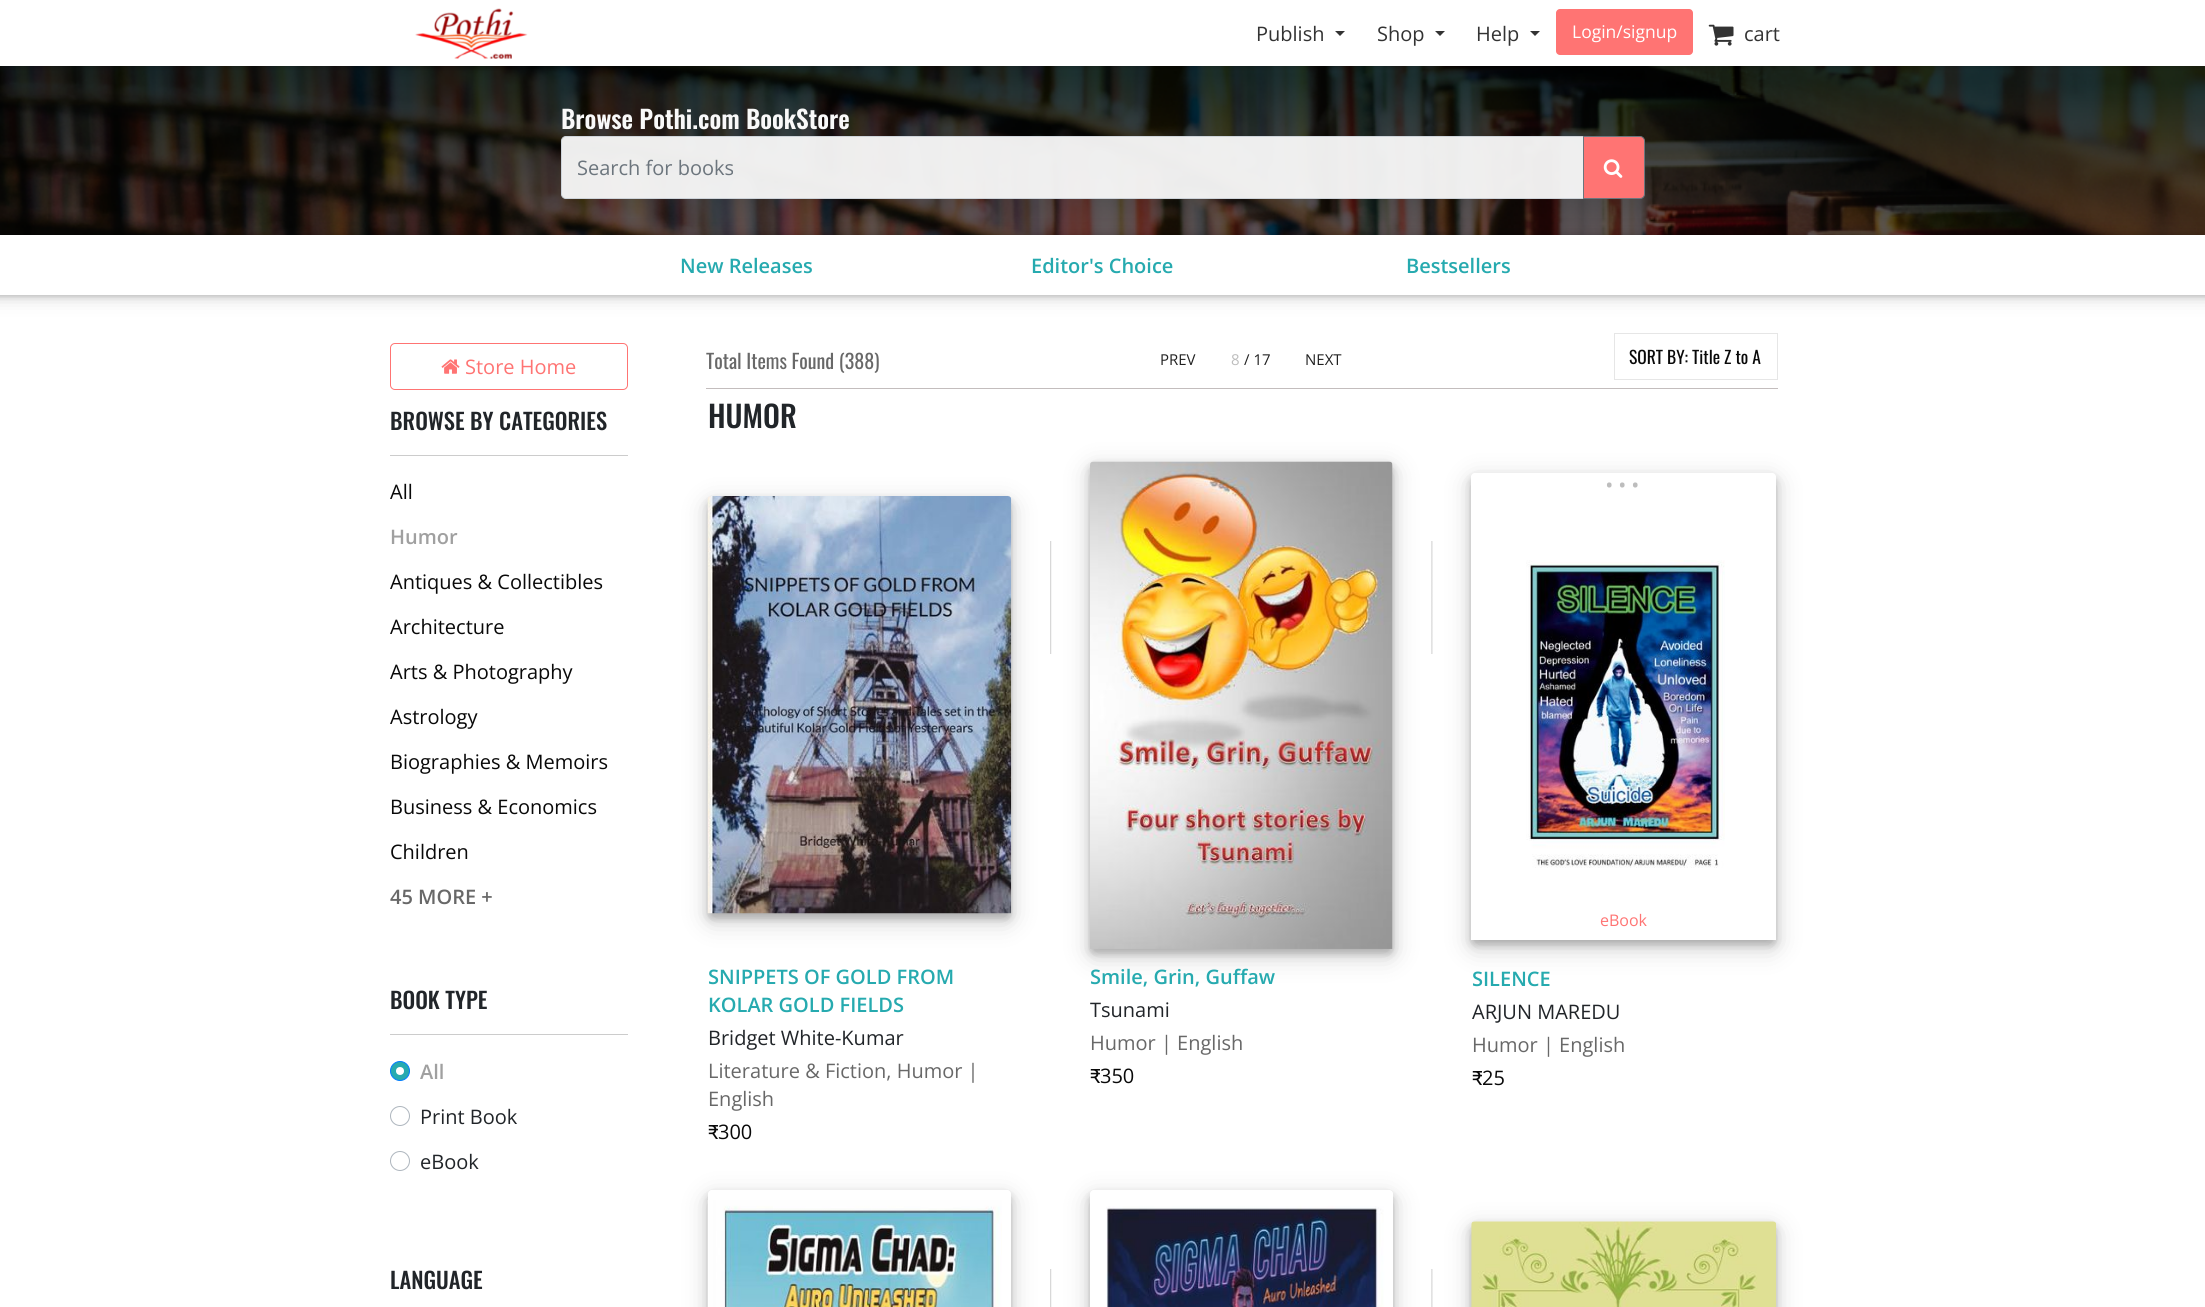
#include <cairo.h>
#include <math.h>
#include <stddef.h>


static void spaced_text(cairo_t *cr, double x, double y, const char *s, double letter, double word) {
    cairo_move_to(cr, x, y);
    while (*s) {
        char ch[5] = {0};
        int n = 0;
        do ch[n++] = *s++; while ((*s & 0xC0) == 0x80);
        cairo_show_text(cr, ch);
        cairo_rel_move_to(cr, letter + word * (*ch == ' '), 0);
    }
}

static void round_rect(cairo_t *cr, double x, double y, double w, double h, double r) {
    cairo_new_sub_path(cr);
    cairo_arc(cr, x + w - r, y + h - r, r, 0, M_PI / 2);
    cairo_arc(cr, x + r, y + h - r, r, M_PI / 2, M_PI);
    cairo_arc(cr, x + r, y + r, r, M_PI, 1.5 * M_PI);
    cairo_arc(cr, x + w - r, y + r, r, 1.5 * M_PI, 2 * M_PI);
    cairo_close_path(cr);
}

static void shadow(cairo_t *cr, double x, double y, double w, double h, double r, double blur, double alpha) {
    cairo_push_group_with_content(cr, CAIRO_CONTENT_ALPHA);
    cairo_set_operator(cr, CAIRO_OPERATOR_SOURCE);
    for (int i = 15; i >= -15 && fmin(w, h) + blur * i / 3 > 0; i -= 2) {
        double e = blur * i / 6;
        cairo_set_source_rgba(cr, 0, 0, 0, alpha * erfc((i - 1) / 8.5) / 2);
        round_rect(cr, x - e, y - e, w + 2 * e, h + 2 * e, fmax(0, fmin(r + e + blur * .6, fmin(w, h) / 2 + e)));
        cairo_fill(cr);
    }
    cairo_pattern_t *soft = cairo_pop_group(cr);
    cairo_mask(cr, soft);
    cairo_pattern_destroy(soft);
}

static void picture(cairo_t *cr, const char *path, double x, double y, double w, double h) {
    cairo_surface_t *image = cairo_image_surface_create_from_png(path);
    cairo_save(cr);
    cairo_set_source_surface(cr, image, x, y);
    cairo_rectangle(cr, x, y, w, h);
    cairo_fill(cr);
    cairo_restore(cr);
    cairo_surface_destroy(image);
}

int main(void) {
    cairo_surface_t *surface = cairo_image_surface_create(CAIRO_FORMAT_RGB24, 2205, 1307);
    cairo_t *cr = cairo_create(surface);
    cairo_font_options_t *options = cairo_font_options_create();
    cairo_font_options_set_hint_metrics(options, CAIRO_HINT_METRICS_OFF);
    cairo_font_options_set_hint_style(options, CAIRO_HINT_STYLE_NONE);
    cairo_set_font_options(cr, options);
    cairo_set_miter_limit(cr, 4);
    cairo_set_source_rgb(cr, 1, 1, 1);
    cairo_paint(cr);
    picture(cr, "img3.png", 0, 66, 2205, 169);
    cairo_set_source_rgb(cr, 0, 0, 0);
    shadow(cr, 0, 1, 2205, 67, 0, 2, 0.2);
    cairo_set_source_rgb(cr, 1, 1, 1);
    cairo_rectangle(cr, 0, 0, 2205, 66);
    cairo_fill(cr);
    picture(cr, "img1.png", 415, 8, 113, 51);
    cairo_select_font_face(cr, "Open Sans", CAIRO_FONT_SLANT_NORMAL, CAIRO_FONT_WEIGHT_NORMAL);
    cairo_set_font_size(cr, 20);
    cairo_set_source_rgb(cr, 0.2, 0.2, 0.2);
    cairo_move_to(cr, 1256, 41);
    cairo_show_text(cr, "Publish");
    cairo_new_path(cr);
    cairo_move_to(cr, 1335, 31);
    cairo_line_to(cr, 1345, 31);
    cairo_line_to(cr, 1340, 36);
    cairo_close_path(cr);
    cairo_fill(cr);
    cairo_move_to(cr, 1377, 41);
    cairo_show_text(cr, "Shop");
    cairo_new_path(cr);
    cairo_move_to(cr, 1435, 31);
    cairo_line_to(cr, 1445, 31);
    cairo_line_to(cr, 1440, 36);
    cairo_close_path(cr);
    cairo_fill(cr);
    cairo_move_to(cr, 1476, 41);
    cairo_show_text(cr, "Help");
    cairo_new_path(cr);
    cairo_move_to(cr, 1530, 31);
    cairo_line_to(cr, 1540, 31);
    cairo_line_to(cr, 1535, 36);
    cairo_close_path(cr);
    cairo_fill(cr);
    cairo_set_source_rgb(cr, 1, 0.455, 0.451);
    round_rect(cr, 1556, 9, 137, 46, 4);
    cairo_fill(cr);
    cairo_set_font_size(cr, 17.5);
    cairo_set_source_rgb(cr, 1, 1, 1);
    cairo_move_to(cr, 1572, 38);
    cairo_show_text(cr, "Login/signup");
    picture(cr, "img2.png", 1708, 24, 26, 22);
    cairo_set_font_size(cr, 20);
    cairo_set_source_rgb(cr, 0.2, 0.2, 0.2);
    cairo_move_to(cr, 1744, 41);
    cairo_show_text(cr, "cart");
    cairo_select_font_face(cr, "Oswald SemiBold", CAIRO_FONT_SLANT_NORMAL, CAIRO_FONT_WEIGHT_NORMAL);
    cairo_set_font_size(cr, 25);
    cairo_set_source_rgb(cr, 0.976, 0.976, 0.976);
    cairo_move_to(cr, 561, 129);
    cairo_show_text(cr, "Browse Pothi.com BookStore");
    cairo_set_source_rgba(cr, 0.973, 0.973, 0.973, 0.95);
    cairo_new_path(cr);
    cairo_move_to(cr, 566, 136.5);
    cairo_line_to(cr, 1583.5, 136.5);
    cairo_line_to(cr, 1583.5, 198.5);
    cairo_line_to(cr, 566, 198.5);
    cairo_curve_to(cr, 563.5, 198.5, 561.5, 196.5, 561.5, 194);
    cairo_line_to(cr, 561.5, 141);
    cairo_curve_to(cr, 561.5, 138.5, 563.5, 136.5, 566, 136.5);
    cairo_close_path(cr);
    cairo_fill_preserve(cr);
    cairo_set_source_rgb(cr, 0.808, 0.831, 0.855);
    cairo_set_line_width(cr, 1);
    cairo_stroke(cr);
    cairo_select_font_face(cr, "Open Sans", CAIRO_FONT_SLANT_NORMAL, CAIRO_FONT_WEIGHT_NORMAL);
    cairo_set_font_size(cr, 20);
    cairo_set_source_rgb(cr, 0.424, 0.459, 0.49);
    cairo_move_to(cr, 577, 175);
    cairo_show_text(cr, "Search for books");
    cairo_set_source_rgb(cr, 1, 0.455, 0.451);
    cairo_new_path(cr);
    cairo_move_to(cr, 1583.5, 136.5);
    cairo_line_to(cr, 1640, 136.5);
    cairo_curve_to(cr, 1642.5, 136.5, 1644.5, 138.5, 1644.5, 141);
    cairo_line_to(cr, 1644.5, 194);
    cairo_curve_to(cr, 1644.5, 196.5, 1642.5, 198.5, 1640, 198.5);
    cairo_line_to(cr, 1583.5, 198.5);
    cairo_close_path(cr);
    cairo_fill_preserve(cr);
    cairo_set_source_rgb(cr, 0.424, 0.459, 0.49);
    cairo_stroke(cr);
    picture(cr, "img4.png", 1603, 159, 20, 19);
    cairo_set_source_rgb(cr, 0, 0, 0);
    shadow(cr, -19, 236, 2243, 60, 0, 9.5, 0.19);
    shadow(cr, -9, 236, 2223, 60, 0, 3, 0.2);
    cairo_set_source_rgb(cr, 1, 1, 1);
    cairo_rectangle(cr, 0, 235, 2205, 60);
    cairo_fill(cr);
    cairo_select_font_face(cr, "Open Sans SemiBold", CAIRO_FONT_SLANT_NORMAL, CAIRO_FONT_WEIGHT_NORMAL);
    cairo_set_source_rgb(cr, 0.149, 0.667, 0.686);
    cairo_move_to(cr, 680, 273);
    cairo_show_text(cr, "New Releases");
    cairo_move_to(cr, 1031, 273);
    cairo_show_text(cr, "Editor's Choice");
    cairo_move_to(cr, 1406, 273);
    cairo_show_text(cr, "Bestsellers");
    round_rect(cr, 390.5, 343.5, 237, 46, 4.5);
    cairo_set_source_rgb(cr, 1, 0.455, 0.451);
    cairo_stroke(cr);
    picture(cr, "img5.png", 441, 359, 19, 15);
    cairo_select_font_face(cr, "Open Sans", CAIRO_FONT_SLANT_NORMAL, CAIRO_FONT_WEIGHT_NORMAL);
    cairo_move_to(cr, 465, 374);
    cairo_show_text(cr, "Store Home");
    cairo_select_font_face(cr, "Oswald Medium", CAIRO_FONT_SLANT_NORMAL, CAIRO_FONT_WEIGHT_NORMAL);
    cairo_set_font_size(cr, 22.5);
    cairo_set_source_rgb(cr, 0.129, 0.145, 0.161);
    cairo_move_to(cr, 390, 430);
    cairo_show_text(cr, "BROWSE BY CATEGORIES");
    cairo_set_source_rgb(cr, 0.8, 0.8, 0.8);
    cairo_rectangle(cr, 390, 455, 238, 1);
    cairo_fill(cr);
    cairo_select_font_face(cr, "Open Sans", CAIRO_FONT_SLANT_NORMAL, CAIRO_FONT_WEIGHT_NORMAL);
    cairo_set_font_size(cr, 20);
    cairo_set_source_rgb(cr, 0.039, 0.039, 0.039);
    cairo_move_to(cr, 390, 499);
    cairo_show_text(cr, "All");
    cairo_select_font_face(cr, "Open Sans SemiBold", CAIRO_FONT_SLANT_NORMAL, CAIRO_FONT_WEIGHT_NORMAL);
    cairo_set_source_rgb(cr, 0.627, 0.627, 0.627);
    cairo_move_to(cr, 390, 544);
    cairo_show_text(cr, "Humor");
    cairo_select_font_face(cr, "Open Sans", CAIRO_FONT_SLANT_NORMAL, CAIRO_FONT_WEIGHT_NORMAL);
    cairo_set_source_rgb(cr, 0.039, 0.039, 0.039);
    cairo_move_to(cr, 390, 589);
    cairo_show_text(cr, "Antiques & Collectibles");
    cairo_move_to(cr, 390, 634);
    cairo_show_text(cr, "Architecture");
    cairo_move_to(cr, 390, 679);
    cairo_show_text(cr, "Arts & Photography");
    cairo_move_to(cr, 390, 724);
    cairo_show_text(cr, "Astrology");
    cairo_move_to(cr, 390, 769);
    cairo_show_text(cr, "Biographies & Memoirs");
    cairo_move_to(cr, 390, 814);
    cairo_show_text(cr, "Business & Economics");
    cairo_move_to(cr, 390, 859);
    cairo_show_text(cr, "Children");
    cairo_select_font_face(cr, "Open Sans SemiBold", CAIRO_FONT_SLANT_NORMAL, CAIRO_FONT_WEIGHT_NORMAL);
    cairo_set_source_rgb(cr, 0.408, 0.408, 0.408);
    cairo_move_to(cr, 390, 904);
    cairo_show_text(cr, "45 MORE +");
    cairo_select_font_face(cr, "Oswald Medium", CAIRO_FONT_SLANT_NORMAL, CAIRO_FONT_WEIGHT_NORMAL);
    cairo_set_font_size(cr, 22.5);
    cairo_set_source_rgb(cr, 0.129, 0.145, 0.161);
    cairo_move_to(cr, 390, 1009);
    cairo_show_text(cr, "BOOK TYPE");
    cairo_set_source_rgb(cr, 0.8, 0.8, 0.8);
    cairo_rectangle(cr, 390, 1034, 238, 1);
    cairo_fill(cr);
    cairo_set_source_rgb(cr, 0.149, 0.667, 0.686);
    cairo_arc(cr, 400, 1071, 9.5, 0, 2 * M_PI);
    cairo_fill_preserve(cr);
    cairo_set_source_rgb(cr, 0, 0.482, 1);
    cairo_stroke(cr);
    cairo_select_font_face(cr, "Open Sans SemiBold", CAIRO_FONT_SLANT_NORMAL, CAIRO_FONT_WEIGHT_NORMAL);
    cairo_set_font_size(cr, 20);
    cairo_set_source_rgb(cr, 0.627, 0.627, 0.627);
    cairo_move_to(cr, 420, 1079);
    cairo_show_text(cr, "All");
    cairo_set_source_rgb(cr, 1, 1, 1);
    cairo_new_path(cr);
    cairo_arc(cr, 400, 1071, 4, 0, 2 * M_PI);
    cairo_fill(cr);
    cairo_arc(cr, 400, 1116, 9.5, 0, 2 * M_PI);
    cairo_set_source_rgb(cr, 0.678, 0.71, 0.741);
    cairo_stroke(cr);
    cairo_select_font_face(cr, "Open Sans", CAIRO_FONT_SLANT_NORMAL, CAIRO_FONT_WEIGHT_NORMAL);
    cairo_set_source_rgb(cr, 0.129, 0.145, 0.161);
    cairo_move_to(cr, 420, 1124);
    cairo_show_text(cr, "Print Book");
    cairo_new_path(cr);
    cairo_arc(cr, 400, 1161, 9.5, 0, 2 * M_PI);
    cairo_set_source_rgb(cr, 0.678, 0.71, 0.741);
    cairo_stroke(cr);
    cairo_set_source_rgb(cr, 0.129, 0.145, 0.161);
    cairo_move_to(cr, 420, 1169);
    cairo_show_text(cr, "eBook");
    cairo_select_font_face(cr, "Oswald Medium", CAIRO_FONT_SLANT_NORMAL, CAIRO_FONT_WEIGHT_NORMAL);
    cairo_set_font_size(cr, 22.5);
    cairo_move_to(cr, 390, 1289);
    cairo_show_text(cr, "LANGUAGE");
    cairo_set_source_rgb(cr, 0.765, 0.741, 0.741);
    cairo_rectangle(cr, 706, 388, 1072, 1);
    cairo_fill(cr);
    cairo_select_font_face(cr, "Oswald", CAIRO_FONT_SLANT_NORMAL, CAIRO_FONT_WEIGHT_NORMAL);
    cairo_set_font_size(cr, 20);
    cairo_set_source_rgb(cr, 0.408, 0.408, 0.408);
    cairo_move_to(cr, 706, 369);
    cairo_show_text(cr, "Total Items Found (388)");
    cairo_select_font_face(cr, "Open Sans", CAIRO_FONT_SLANT_NORMAL, CAIRO_FONT_WEIGHT_NORMAL);
    cairo_set_font_size(cr, 15);
    cairo_set_source_rgb(cr, 0.129, 0.129, 0.129);
    cairo_move_to(cr, 1160, 365);
    cairo_show_text(cr, "PREV");
    cairo_set_source_rgb(cr, 0.741, 0.741, 0.741);
    cairo_move_to(cr, 1231, 365);
    cairo_show_text(cr, "8");
    cairo_set_source_rgb(cr, 0.129, 0.129, 0.129);
    cairo_move_to(cr, 1244, 365);
    cairo_show_text(cr, "/ 17");
    cairo_move_to(cr, 1305, 365);
    cairo_show_text(cr, "NEXT");
    cairo_rectangle(cr, 1614.5, 333.5, 163, 46);
    cairo_set_source_rgb(cr, 0.902, 0.902, 0.902);
    cairo_stroke(cr);
    cairo_select_font_face(cr, "Oswald", CAIRO_FONT_SLANT_NORMAL, CAIRO_FONT_WEIGHT_NORMAL);
    cairo_set_font_size(cr, 17.5);
    cairo_set_source_rgb(cr, 0.039, 0.039, 0.039);
    cairo_move_to(cr, 1629, 364);
    cairo_show_text(cr, "SORT BY: Title Z to A");
    cairo_select_font_face(cr, "Oswald Medium", CAIRO_FONT_SLANT_NORMAL, CAIRO_FONT_WEIGHT_NORMAL);
    cairo_set_font_size(cr, 30);
    cairo_set_source_rgb(cr, 0.129, 0.145, 0.161);
    cairo_move_to(cr, 708, 428);
    cairo_show_text(cr, "HUMOR");
    picture(cr, "img6.png", 1050, 541, 2, 113);
    cairo_set_source_rgb(cr, 0, 0, 0);
    shadow(cr, 708, 504, 303, 417, 4, 12.5, 0.19);
    shadow(cr, 708, 501, 303, 418, 4, 4, 0.2);
    picture(cr, "img7.png", 707, 496, 305, 418);
    cairo_select_font_face(cr, "Open Sans SemiBold", CAIRO_FONT_SLANT_NORMAL, CAIRO_FONT_WEIGHT_NORMAL);
    cairo_set_font_size(cr, 20);
    cairo_set_source_rgb(cr, 0.149, 0.667, 0.686);
    cairo_move_to(cr, 708, 984);
    cairo_show_text(cr, "SNIPPETS OF GOLD FROM");
    cairo_move_to(cr, 708, 1012);
    cairo_show_text(cr, "KOLAR GOLD FIELDS");
    cairo_select_font_face(cr, "Open Sans", CAIRO_FONT_SLANT_NORMAL, CAIRO_FONT_WEIGHT_NORMAL);
    cairo_set_source_rgb(cr, 0.129, 0.145, 0.161);
    cairo_move_to(cr, 708, 1045);
    cairo_show_text(cr, "Bridget White-Kumar");
    cairo_set_source_rgb(cr, 0.408, 0.408, 0.408);
    cairo_move_to(cr, 708, 1078);
    cairo_show_text(cr, "Literature & Fiction, Humor |");
    cairo_move_to(cr, 708, 1106);
    cairo_show_text(cr, "English");
    cairo_select_font_face(cr, "Cabin", CAIRO_FONT_SLANT_NORMAL, CAIRO_FONT_WEIGHT_NORMAL);
    cairo_set_source_rgb(cr, 0.039, 0.039, 0.039);
    cairo_move_to(cr, 708, 1139);
    cairo_show_text(cr, "₹");
    cairo_select_font_face(cr, "Open Sans", CAIRO_FONT_SLANT_NORMAL, CAIRO_FONT_WEIGHT_NORMAL);
    cairo_move_to(cr, 718, 1139);
    cairo_show_text(cr, "300");
    picture(cr, "img8.png", 1431, 541, 2, 113);
    cairo_set_source_rgb(cr, 0, 0, 0);
    shadow(cr, 1090, 469, 303, 487, 4, 12.5, 0.19);
    shadow(cr, 1090, 466, 303, 488, 4, 4, 0.2);
    picture(cr, "img9.png", 1090, 461, 303, 488);
    cairo_select_font_face(cr, "Open Sans SemiBold", CAIRO_FONT_SLANT_NORMAL, CAIRO_FONT_WEIGHT_NORMAL);
    cairo_set_source_rgb(cr, 0.149, 0.667, 0.686);
    cairo_move_to(cr, 1090, 984);
    cairo_show_text(cr, "Smile, Grin, Guffaw");
    cairo_select_font_face(cr, "Open Sans", CAIRO_FONT_SLANT_NORMAL, CAIRO_FONT_WEIGHT_NORMAL);
    cairo_set_source_rgb(cr, 0.129, 0.145, 0.161);
    cairo_move_to(cr, 1090, 1017);
    cairo_show_text(cr, "Tsunami");
    cairo_set_source_rgb(cr, 0.408, 0.408, 0.408);
    cairo_move_to(cr, 1090, 1050);
    cairo_show_text(cr, "Humor | English");
    cairo_select_font_face(cr, "Cabin", CAIRO_FONT_SLANT_NORMAL, CAIRO_FONT_WEIGHT_NORMAL);
    cairo_set_source_rgb(cr, 0.039, 0.039, 0.039);
    cairo_move_to(cr, 1090, 1083);
    cairo_show_text(cr, "₹");
    cairo_select_font_face(cr, "Open Sans", CAIRO_FONT_SLANT_NORMAL, CAIRO_FONT_WEIGHT_NORMAL);
    cairo_move_to(cr, 1100, 1083);
    cairo_show_text(cr, "350");
    cairo_save(cr);
    cairo_set_fill_rule(cr, CAIRO_FILL_RULE_EVEN_ODD);
    cairo_new_path(cr);
    cairo_move_to(cr, 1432, 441);
    cairo_line_to(cr, 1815, 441);
    cairo_line_to(cr, 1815, 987);
    cairo_line_to(cr, 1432, 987);
    cairo_close_path(cr);
    cairo_move_to(cr, 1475, 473);
    cairo_line_to(cr, 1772, 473);
    cairo_curve_to(cr, 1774, 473, 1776, 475, 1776, 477);
    cairo_line_to(cr, 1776, 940);
    cairo_line_to(cr, 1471, 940);
    cairo_line_to(cr, 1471, 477);
    cairo_curve_to(cr, 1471, 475, 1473, 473, 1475, 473);
    cairo_close_path(cr);
    cairo_clip(cr);
    cairo_set_source_rgb(cr, 0, 0, 0);
    shadow(cr, 1471, 480, 305, 468, 4, 12.5, 0.19);
    cairo_restore(cr);
    cairo_save(cr);
    cairo_set_fill_rule(cr, CAIRO_FILL_RULE_EVEN_ODD);
    cairo_new_path(cr);
    cairo_move_to(cr, 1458, 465);
    cairo_line_to(cr, 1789, 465);
    cairo_line_to(cr, 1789, 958);
    cairo_line_to(cr, 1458, 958);
    cairo_close_path(cr);
    cairo_move_to(cr, 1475, 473);
    cairo_line_to(cr, 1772, 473);
    cairo_curve_to(cr, 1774, 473, 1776, 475, 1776, 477);
    cairo_line_to(cr, 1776, 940);
    cairo_line_to(cr, 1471, 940);
    cairo_line_to(cr, 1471, 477);
    cairo_curve_to(cr, 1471, 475, 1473, 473, 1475, 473);
    cairo_close_path(cr);
    cairo_clip(cr);
    cairo_set_source_rgb(cr, 0, 0, 0);
    shadow(cr, 1471, 478, 305, 467, 4, 4, 0.2);
    cairo_restore(cr);
    picture(cr, "img10.png", 1526, 560, 199, 308);
    cairo_set_font_size(cr, 40);
    cairo_set_source_rgb(cr, 0.741, 0.741, 0.741);
    spaced_text(cr, 1604, 487, "...", 2.5, 0);
    cairo_set_font_size(cr, 16);
    cairo_set_source_rgb(cr, 1, 0.455, 0.451);
    cairo_move_to(cr, 1600, 926);
    cairo_show_text(cr, "eBook");
    cairo_select_font_face(cr, "Open Sans SemiBold", CAIRO_FONT_SLANT_NORMAL, CAIRO_FONT_WEIGHT_NORMAL);
    cairo_set_font_size(cr, 20);
    cairo_set_source_rgb(cr, 0.149, 0.667, 0.686);
    cairo_move_to(cr, 1472, 986);
    cairo_show_text(cr, "SILENCE");
    cairo_select_font_face(cr, "Open Sans", CAIRO_FONT_SLANT_NORMAL, CAIRO_FONT_WEIGHT_NORMAL);
    cairo_set_source_rgb(cr, 0.129, 0.145, 0.161);
    cairo_move_to(cr, 1472, 1019);
    cairo_show_text(cr, "ARJUN MAREDU");
    cairo_set_source_rgb(cr, 0.408, 0.408, 0.408);
    cairo_move_to(cr, 1472, 1052);
    cairo_show_text(cr, "Humor | English");
    cairo_select_font_face(cr, "Cabin", CAIRO_FONT_SLANT_NORMAL, CAIRO_FONT_WEIGHT_NORMAL);
    cairo_set_source_rgb(cr, 0.039, 0.039, 0.039);
    cairo_move_to(cr, 1472, 1085);
    cairo_show_text(cr, "₹");
    cairo_select_font_face(cr, "Open Sans", CAIRO_FONT_SLANT_NORMAL, CAIRO_FONT_WEIGHT_NORMAL);
    cairo_move_to(cr, 1482, 1085);
    cairo_show_text(cr, "25");
    picture(cr, "img11.png", 1050, 1269, 2, 38);
    cairo_save(cr);
    cairo_set_fill_rule(cr, CAIRO_FILL_RULE_EVEN_ODD);
    cairo_new_path(cr);
    cairo_move_to(cr, 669, 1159);
    cairo_line_to(cr, 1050, 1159);
    cairo_line_to(cr, 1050, 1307);
    cairo_line_to(cr, 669, 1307);
    cairo_close_path(cr);
    cairo_move_to(cr, 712, 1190);
    cairo_line_to(cr, 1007, 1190);
    cairo_curve_to(cr, 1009, 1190, 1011, 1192, 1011, 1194);
    cairo_line_to(cr, 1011, 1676);
    cairo_line_to(cr, 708, 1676);
    cairo_line_to(cr, 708, 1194);
    cairo_curve_to(cr, 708, 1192, 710, 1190, 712, 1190);
    cairo_close_path(cr);
    cairo_clip(cr);
    cairo_set_source_rgb(cr, 0, 0, 0);
    shadow(cr, 708, 1198, 303, 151, 4, 12.5, 0.19);
    cairo_restore(cr);
    cairo_save(cr);
    cairo_set_fill_rule(cr, CAIRO_FILL_RULE_EVEN_ODD);
    cairo_new_path(cr);
    cairo_move_to(cr, 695, 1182);
    cairo_line_to(cr, 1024, 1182);
    cairo_line_to(cr, 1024, 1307);
    cairo_line_to(cr, 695, 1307);
    cairo_close_path(cr);
    cairo_move_to(cr, 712, 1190);
    cairo_line_to(cr, 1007, 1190);
    cairo_curve_to(cr, 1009, 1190, 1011, 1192, 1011, 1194);
    cairo_line_to(cr, 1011, 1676);
    cairo_line_to(cr, 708, 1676);
    cairo_line_to(cr, 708, 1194);
    cairo_curve_to(cr, 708, 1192, 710, 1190, 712, 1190);
    cairo_close_path(cr);
    cairo_clip(cr);
    cairo_set_source_rgb(cr, 0, 0, 0);
    shadow(cr, 708, 1195, 303, 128, 4, 4, 0.2);
    cairo_restore(cr);
    picture(cr, "img12.png", 707, 1200, 295, 107);
    picture(cr, "img13.png", 1431, 1269, 2, 38);
    cairo_save(cr);
    cairo_set_fill_rule(cr, CAIRO_FILL_RULE_EVEN_ODD);
    cairo_new_path(cr);
    cairo_move_to(cr, 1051, 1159);
    cairo_line_to(cr, 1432, 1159);
    cairo_line_to(cr, 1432, 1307);
    cairo_line_to(cr, 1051, 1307);
    cairo_close_path(cr);
    cairo_move_to(cr, 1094, 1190);
    cairo_line_to(cr, 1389, 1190);
    cairo_curve_to(cr, 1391, 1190, 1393, 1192, 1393, 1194);
    cairo_line_to(cr, 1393, 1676);
    cairo_line_to(cr, 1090, 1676);
    cairo_line_to(cr, 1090, 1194);
    cairo_curve_to(cr, 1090, 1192, 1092, 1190, 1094, 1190);
    cairo_close_path(cr);
    cairo_clip(cr);
    cairo_set_source_rgb(cr, 0, 0, 0);
    shadow(cr, 1090, 1198, 303, 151, 4, 12.5, 0.19);
    cairo_restore(cr);
    cairo_save(cr);
    cairo_set_fill_rule(cr, CAIRO_FILL_RULE_EVEN_ODD);
    cairo_new_path(cr);
    cairo_move_to(cr, 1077, 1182);
    cairo_line_to(cr, 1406, 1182);
    cairo_line_to(cr, 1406, 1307);
    cairo_line_to(cr, 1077, 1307);
    cairo_close_path(cr);
    cairo_move_to(cr, 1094, 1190);
    cairo_line_to(cr, 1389, 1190);
    cairo_curve_to(cr, 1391, 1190, 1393, 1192, 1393, 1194);
    cairo_line_to(cr, 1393, 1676);
    cairo_line_to(cr, 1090, 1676);
    cairo_line_to(cr, 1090, 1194);
    cairo_curve_to(cr, 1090, 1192, 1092, 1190, 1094, 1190);
    cairo_close_path(cr);
    cairo_clip(cr);
    cairo_set_source_rgb(cr, 0, 0, 0);
    shadow(cr, 1090, 1195, 303, 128, 4, 4, 0.2);
    cairo_restore(cr);
    picture(cr, "img14.png", 1106, 1191, 287, 116);
    cairo_set_source_rgb(cr, 0, 0, 0);
    shadow(cr, 1471, 1229, 305, 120, 4, 12.5, 0.19);
    shadow(cr, 1471, 1226, 305, 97, 4, 4, 0.2);
    picture(cr, "img15.png", 1471, 1221, 306, 86);
    cairo_surface_write_to_png(surface, "page.png");
    cairo_font_options_destroy(options);
    cairo_destroy(cr);
    cairo_surface_destroy(surface);
    return 0;
}
